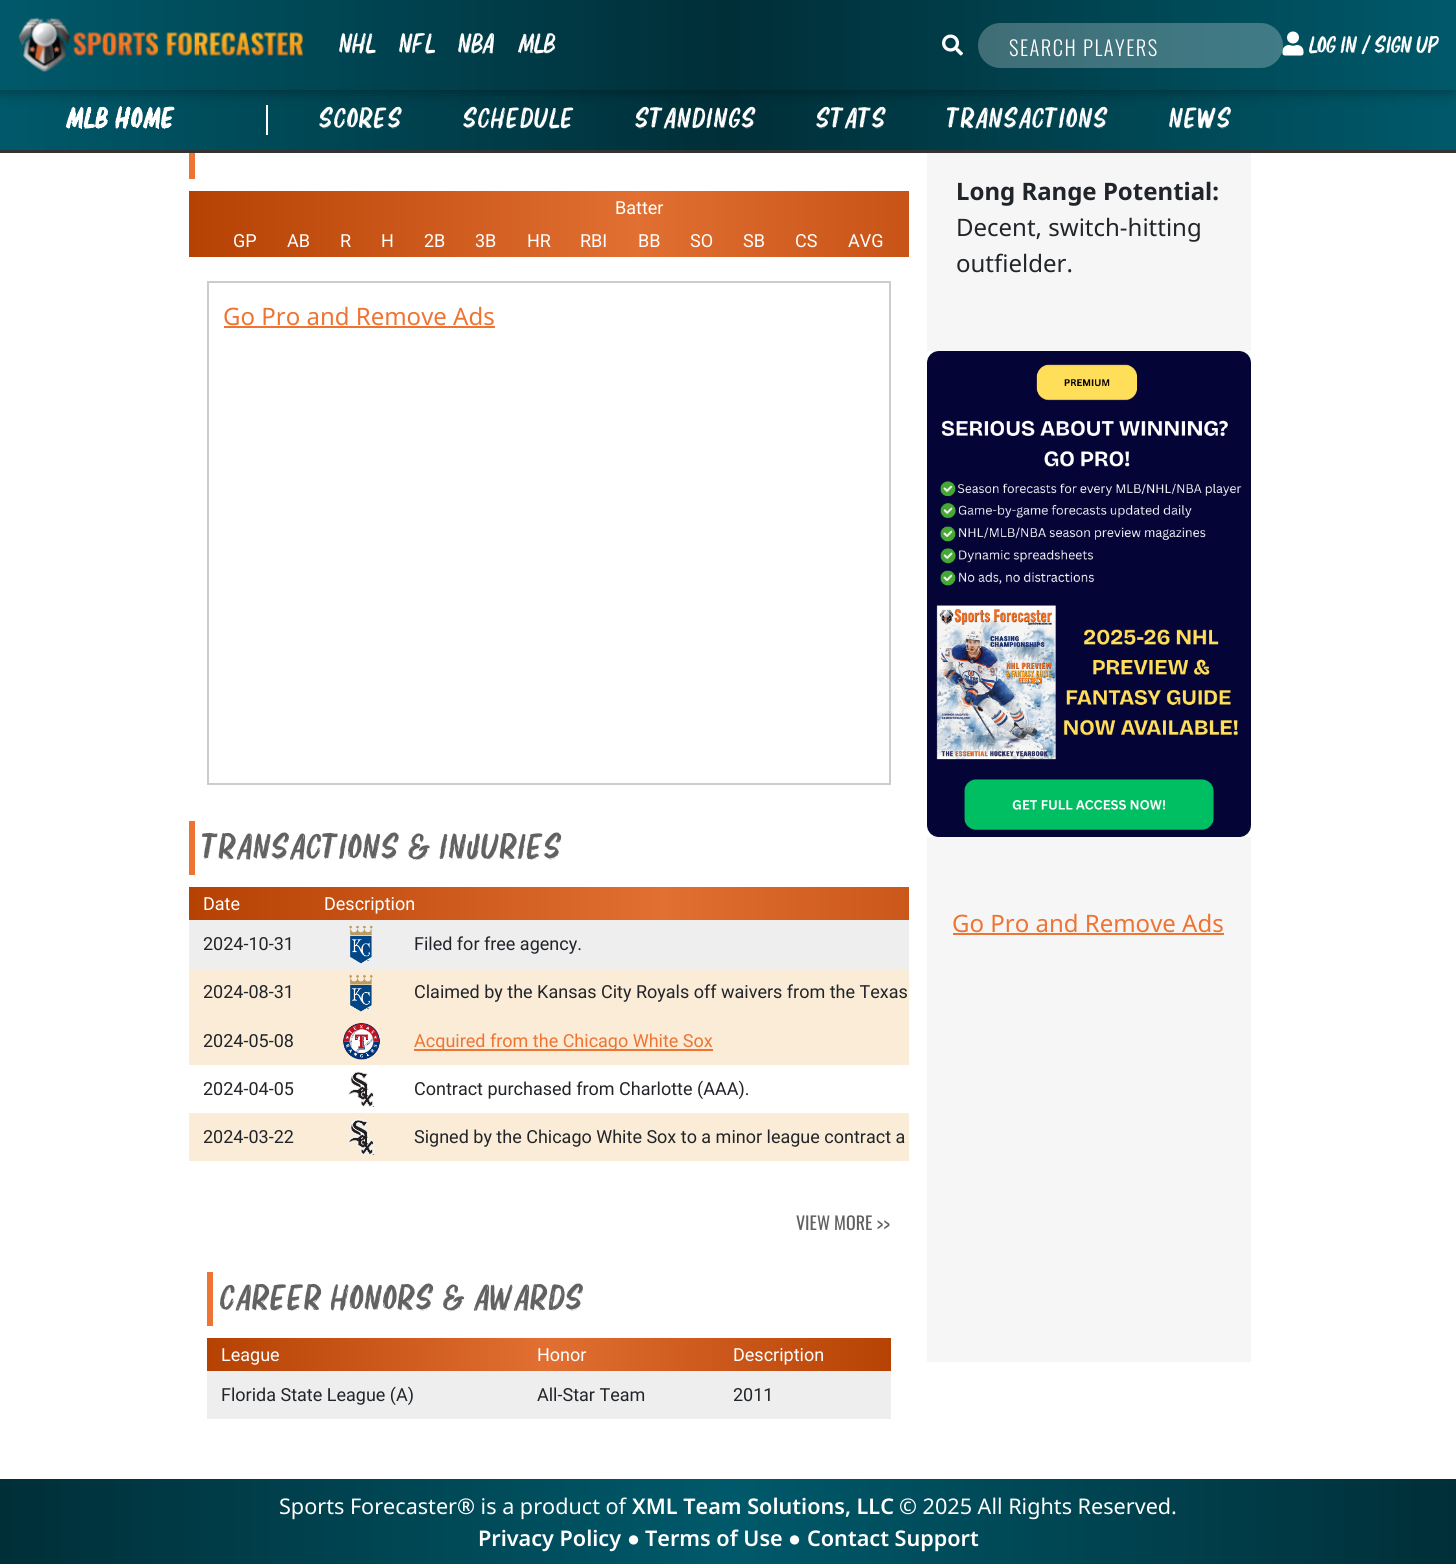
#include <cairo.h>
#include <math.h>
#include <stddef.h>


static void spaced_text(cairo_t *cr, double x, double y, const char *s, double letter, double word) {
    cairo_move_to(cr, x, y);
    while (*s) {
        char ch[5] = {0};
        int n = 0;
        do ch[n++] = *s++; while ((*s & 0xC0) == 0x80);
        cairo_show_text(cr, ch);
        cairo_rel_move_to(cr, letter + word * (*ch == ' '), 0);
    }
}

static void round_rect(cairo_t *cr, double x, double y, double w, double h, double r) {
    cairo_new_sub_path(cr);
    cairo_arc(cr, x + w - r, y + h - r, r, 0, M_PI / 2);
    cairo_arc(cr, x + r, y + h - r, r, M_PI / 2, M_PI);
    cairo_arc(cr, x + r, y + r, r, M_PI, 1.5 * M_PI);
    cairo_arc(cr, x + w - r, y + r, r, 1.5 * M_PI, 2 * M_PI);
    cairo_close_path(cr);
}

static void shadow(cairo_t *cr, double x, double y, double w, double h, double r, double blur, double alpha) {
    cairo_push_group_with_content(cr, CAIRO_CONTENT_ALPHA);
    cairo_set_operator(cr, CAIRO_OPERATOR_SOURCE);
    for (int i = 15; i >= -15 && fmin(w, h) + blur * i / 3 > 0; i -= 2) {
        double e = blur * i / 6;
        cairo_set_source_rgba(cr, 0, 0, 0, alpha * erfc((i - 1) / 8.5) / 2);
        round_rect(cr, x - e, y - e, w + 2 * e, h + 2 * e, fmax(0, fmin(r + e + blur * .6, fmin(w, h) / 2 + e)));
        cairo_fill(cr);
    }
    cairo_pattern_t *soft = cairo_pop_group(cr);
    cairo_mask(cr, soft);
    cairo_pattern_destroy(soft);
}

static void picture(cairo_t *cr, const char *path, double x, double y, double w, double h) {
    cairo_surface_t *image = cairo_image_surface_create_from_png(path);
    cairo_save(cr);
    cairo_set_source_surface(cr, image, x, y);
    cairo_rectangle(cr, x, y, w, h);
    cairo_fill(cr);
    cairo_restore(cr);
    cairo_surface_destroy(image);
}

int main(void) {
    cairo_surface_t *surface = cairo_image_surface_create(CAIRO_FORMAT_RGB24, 1456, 1564);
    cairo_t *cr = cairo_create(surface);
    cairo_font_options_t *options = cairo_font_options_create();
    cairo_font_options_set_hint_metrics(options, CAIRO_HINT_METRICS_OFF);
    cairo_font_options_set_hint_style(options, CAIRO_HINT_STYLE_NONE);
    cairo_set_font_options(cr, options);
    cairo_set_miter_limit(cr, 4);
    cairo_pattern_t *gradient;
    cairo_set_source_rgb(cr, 1, 1, 1);
    cairo_paint(cr);
    gradient = cairo_pattern_create_linear(0, 120, 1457, 120);
    cairo_pattern_add_color_stop_rgba(gradient, 0, 0, 0.349, 0.416, 1);
    cairo_pattern_add_color_stop_rgba(gradient, 0.5, 0, 0.184, 0.22, 1);
    cairo_pattern_add_color_stop_rgba(gradient, 1, 0, 0.349, 0.416, 1);
    cairo_set_source(cr, gradient);
    cairo_pattern_destroy(gradient);
    cairo_rectangle(cr, 0, 90, 1456, 60);
    cairo_fill(cr);
    cairo_set_source_rgb(cr, 1, 1, 1);
    cairo_rectangle(cr, 266, 105, 2, 30);
    cairo_fill(cr);
    cairo_set_source_rgb(cr, 0, 0, 0);
    shadow(cr, -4, 0, 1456, 90, 0, 7.5, 0.44);
    gradient = cairo_pattern_create_linear(0, 45, 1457, 45);
    cairo_pattern_add_color_stop_rgba(gradient, 0, 0, 0.349, 0.416, 1);
    cairo_pattern_add_color_stop_rgba(gradient, 0.5, 0, 0.184, 0.22, 1);
    cairo_pattern_add_color_stop_rgba(gradient, 1, 0, 0.349, 0.416, 1);
    cairo_set_source(cr, gradient);
    cairo_pattern_destroy(gradient);
    cairo_rectangle(cr, 0, 0, 1456, 90);
    cairo_fill(cr);
    picture(cr, "img1.png", 18, 17, 285, 56);
    cairo_select_font_face(cr, "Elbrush", CAIRO_FONT_SLANT_NORMAL, CAIRO_FONT_WEIGHT_NORMAL);
    cairo_set_font_size(cr, 28);
    cairo_set_source_rgb(cr, 1, 1, 1);
    cairo_move_to(cr, 339, 53);
    cairo_show_text(cr, "NHL");
    cairo_move_to(cr, 399, 53);
    cairo_show_text(cr, "NFL");
    cairo_move_to(cr, 458, 53);
    cairo_show_text(cr, "NBA");
    cairo_move_to(cr, 518, 53);
    cairo_show_text(cr, "MLB");
    picture(cr, "img2.png", 942, 34, 21, 22);
    cairo_set_source_rgba(cr, 1, 1, 1, 0.25);
    round_rect(cr, 978, 23, 305, 45, 22.5);
    cairo_fill(cr);
    cairo_select_font_face(cr, "Oswald Light", CAIRO_FONT_SLANT_NORMAL, CAIRO_FONT_WEIGHT_NORMAL);
    cairo_set_font_size(cr, 20.5);
    cairo_set_source_rgb(cr, 1, 1, 1);
    spaced_text(cr, 1009, 56, "SEARCH PLAYERS", 1.5, 0);
    picture(cr, "img3.png", 1282, 31, 22, 25);
    cairo_select_font_face(cr, "Elbrush", CAIRO_FONT_SLANT_NORMAL, CAIRO_FONT_WEIGHT_NORMAL);
    cairo_set_font_size(cr, 24);
    cairo_move_to(cr, 1309, 53);
    cairo_show_text(cr, "Log in / Sign up");
    cairo_select_font_face(cr, "Elbrush", CAIRO_FONT_SLANT_NORMAL, CAIRO_FONT_WEIGHT_BOLD);
    cairo_set_font_size(cr, 28.75);
    spaced_text(cr, 66, 128, "MLB HOME", 1.5, 0);
    cairo_select_font_face(cr, "Elbrush", CAIRO_FONT_SLANT_NORMAL, CAIRO_FONT_WEIGHT_NORMAL);
    spaced_text(cr, 319, 128, "Scores", 1.5, 0);
    spaced_text(cr, 463, 128, "Schedule", 1.5, 0);
    spaced_text(cr, 635, 128, "Standings", 1.5, 0);
    spaced_text(cr, 816, 128, "Stats", 1.5, 0);
    spaced_text(cr, 947, 128, "Transactions", 1.5, 0);
    spaced_text(cr, 1169, 128, "News", 1.5, 0);
    cairo_set_source_rgb(cr, 0.2, 0.2, 0.2);
    cairo_rectangle(cr, 0, 150, 1456, 3);
    cairo_fill(cr);
    cairo_set_source_rgb(cr, 0.933, 0.455, 0.2);
    cairo_rectangle(cr, 189, 153, 6, 26);
    cairo_fill(cr);
    gradient = cairo_pattern_create_linear(189, 224, 1091, 223);
    cairo_pattern_add_color_stop_rgba(gradient, 0, 0.71, 0.255, 0.012, 1);
    cairo_pattern_add_color_stop_rgba(gradient, 0.5, 0.886, 0.439, 0.196, 1);
    cairo_pattern_add_color_stop_rgba(gradient, 0.5, 0.882, 0.435, 0.192, 1);
    cairo_pattern_add_color_stop_rgba(gradient, 1, 0.714, 0.259, 0.016, 1);
    cairo_set_source(cr, gradient);
    cairo_pattern_destroy(gradient);
    cairo_rectangle(cr, 189, 191, 720, 66);
    cairo_fill(cr);
    cairo_select_font_face(cr, "Roboto", CAIRO_FONT_SLANT_NORMAL, CAIRO_FONT_WEIGHT_NORMAL);
    cairo_set_font_size(cr, 18);
    cairo_set_source_rgb(cr, 1, 1, 1);
    cairo_move_to(cr, 615, 214);
    cairo_show_text(cr, "Batter");
    cairo_move_to(cr, 233, 247);
    cairo_show_text(cr, "GP");
    cairo_move_to(cr, 287, 247);
    cairo_show_text(cr, "AB");
    cairo_move_to(cr, 340, 247);
    cairo_show_text(cr, "R");
    cairo_move_to(cr, 381, 247);
    cairo_show_text(cr, "H");
    cairo_move_to(cr, 424, 247);
    cairo_show_text(cr, "2B");
    cairo_move_to(cr, 475, 247);
    cairo_show_text(cr, "3B");
    cairo_move_to(cr, 527, 247);
    cairo_show_text(cr, "HR");
    cairo_move_to(cr, 580, 247);
    cairo_show_text(cr, "RBI");
    cairo_move_to(cr, 638, 247);
    cairo_show_text(cr, "BB");
    cairo_move_to(cr, 690, 247);
    cairo_show_text(cr, "SO");
    cairo_move_to(cr, 743, 247);
    cairo_show_text(cr, "SB");
    cairo_move_to(cr, 795, 247);
    cairo_show_text(cr, "CS");
    cairo_move_to(cr, 848, 247);
    cairo_show_text(cr, "AVG");
    cairo_rectangle(cr, 208, 282, 682, 502);
    cairo_set_source_rgb(cr, 0.8, 0.8, 0.8);
    cairo_stroke(cr);
    cairo_select_font_face(cr, "Noto Sans", CAIRO_FONT_SLANT_NORMAL, CAIRO_FONT_WEIGHT_NORMAL);
    cairo_set_font_size(cr, 24);
    cairo_set_source_rgb(cr, 0.933, 0.455, 0.2);
    cairo_move_to(cr, 223, 325);
    cairo_show_text(cr, "Go Pro and Remove Ads");
    cairo_rectangle(cr, 224, 326, 271, 2);
    cairo_fill(cr);
    cairo_rectangle(cr, 189, 821, 6, 54);
    cairo_fill(cr);
    cairo_select_font_face(cr, "Elbrush", CAIRO_FONT_SLANT_NORMAL, CAIRO_FONT_WEIGHT_NORMAL);
    cairo_set_font_size(cr, 36);
    cairo_set_source_rgb(cr, 0.38, 0.38, 0.38);
    spaced_text(cr, 202, 859, "TRANSACTIONS & INJURIES", 1.5, 0);
    gradient = cairo_pattern_create_linear(189, 1024, 1143, 1024);
    cairo_pattern_add_color_stop_rgba(gradient, 0, 0.71, 0.255, 0.012, 1);
    cairo_pattern_add_color_stop_rgba(gradient, 0.5, 0.886, 0.439, 0.196, 1);
    cairo_pattern_add_color_stop_rgba(gradient, 0.5, 0.882, 0.435, 0.192, 1);
    cairo_pattern_add_color_stop_rgba(gradient, 1, 0.714, 0.259, 0.016, 1);
    cairo_set_source(cr, gradient);
    cairo_pattern_destroy(gradient);
    cairo_rectangle(cr, 189, 887, 720, 33);
    cairo_fill(cr);
    cairo_select_font_face(cr, "Roboto", CAIRO_FONT_SLANT_NORMAL, CAIRO_FONT_WEIGHT_NORMAL);
    cairo_set_font_size(cr, 18);
    cairo_set_source_rgb(cr, 1, 1, 1);
    cairo_move_to(cr, 203, 910);
    cairo_show_text(cr, "Date");
    cairo_move_to(cr, 324, 910);
    cairo_show_text(cr, "Description");
    cairo_set_source_rgb(cr, 0.933, 0.933, 0.933);
    cairo_rectangle(cr, 189, 920, 720, 49);
    cairo_fill(cr);
    cairo_set_source_rgb(cr, 0.129, 0.145, 0.161);
    cairo_move_to(cr, 203, 950);
    cairo_show_text(cr, "2024-10-31");
    picture(cr, "img4.png", 349, 925, 24, 39);
    cairo_move_to(cr, 414, 950);
    cairo_show_text(cr, "Filed for free agency.");
    cairo_set_source_rgb(cr, 0.98, 0.922, 0.843);
    cairo_rectangle(cr, 189, 969, 720, 96);
    cairo_fill(cr);
    cairo_set_source_rgb(cr, 0.129, 0.145, 0.161);
    cairo_move_to(cr, 203, 998);
    cairo_show_text(cr, "2024-08-31");
    picture(cr, "img5.png", 349, 975, 24, 37);
    cairo_move_to(cr, 414, 998);
    cairo_show_text(cr, "Claimed by the Kansas City Royals off waivers from the Texas");
    cairo_move_to(cr, 203, 1047);
    cairo_show_text(cr, "2024-05-08");
    picture(cr, "img6.png", 343, 1023, 37, 37);
    cairo_set_source_rgb(cr, 0.933, 0.455, 0.2);
    cairo_rectangle(cr, 414, 1049, 299, 2);
    cairo_fill(cr);
    cairo_move_to(cr, 414, 1047);
    cairo_show_text(cr, "Acquired from the Chicago White Sox");
    cairo_set_source_rgb(cr, 0.129, 0.145, 0.161);
    cairo_move_to(cr, 203, 1095);
    cairo_show_text(cr, "2024-04-05");
    picture(cr, "img7.png", 348, 1071, 27, 37);
    cairo_move_to(cr, 414, 1095);
    cairo_show_text(cr, "Contract purchased from Charlotte (AAA).");
    cairo_set_source_rgb(cr, 0.98, 0.922, 0.843);
    cairo_rectangle(cr, 189, 1113, 720, 48);
    cairo_fill(cr);
    cairo_set_source_rgb(cr, 0.129, 0.145, 0.161);
    cairo_move_to(cr, 203, 1143);
    cairo_show_text(cr, "2024-03-22");
    picture(cr, "img8.png", 348, 1119, 27, 37);
    cairo_move_to(cr, 414, 1143);
    cairo_show_text(cr, "Signed by the Chicago White Sox to a minor league contract a");
    cairo_select_font_face(cr, "Oswald", CAIRO_FONT_SLANT_NORMAL, CAIRO_FONT_WEIGHT_NORMAL);
    cairo_set_source_rgb(cr, 0.38, 0.38, 0.38);
    cairo_move_to(cr, 796, 1230);
    cairo_show_text(cr, "VIEW MORE >>");
    cairo_set_source_rgb(cr, 0.933, 0.455, 0.2);
    cairo_rectangle(cr, 207, 1272, 6, 54);
    cairo_fill(cr);
    cairo_select_font_face(cr, "Elbrush", CAIRO_FONT_SLANT_NORMAL, CAIRO_FONT_WEIGHT_NORMAL);
    cairo_set_font_size(cr, 36);
    cairo_set_source_rgb(cr, 0.38, 0.38, 0.38);
    spaced_text(cr, 220, 1310, "CAREER HONORS & AWARDS", 1.5, 0);
    gradient = cairo_pattern_create_linear(207, 1379, 891, 1379);
    cairo_pattern_add_color_stop_rgba(gradient, 0, 0.71, 0.255, 0.012, 1);
    cairo_pattern_add_color_stop_rgba(gradient, 0.5, 0.886, 0.439, 0.196, 1);
    cairo_pattern_add_color_stop_rgba(gradient, 0.5, 0.882, 0.435, 0.192, 1);
    cairo_pattern_add_color_stop_rgba(gradient, 1, 0.714, 0.259, 0.016, 1);
    cairo_set_source(cr, gradient);
    cairo_pattern_destroy(gradient);
    cairo_rectangle(cr, 207, 1338, 684, 33);
    cairo_fill(cr);
    cairo_select_font_face(cr, "Roboto", CAIRO_FONT_SLANT_NORMAL, CAIRO_FONT_WEIGHT_NORMAL);
    cairo_set_font_size(cr, 18);
    cairo_set_source_rgb(cr, 1, 1, 1);
    cairo_move_to(cr, 221, 1361);
    cairo_show_text(cr, "League");
    cairo_move_to(cr, 537, 1361);
    cairo_show_text(cr, "Honor");
    cairo_move_to(cr, 733, 1361);
    cairo_show_text(cr, "Description");
    cairo_set_source_rgb(cr, 0.933, 0.933, 0.933);
    cairo_rectangle(cr, 207, 1371, 684, 48);
    cairo_fill(cr);
    cairo_set_source_rgb(cr, 0.129, 0.145, 0.161);
    cairo_move_to(cr, 221, 1401);
    cairo_show_text(cr, "Florida State League (A)");
    cairo_move_to(cr, 537, 1401);
    cairo_show_text(cr, "All-Star Team");
    cairo_move_to(cr, 733, 1401);
    cairo_show_text(cr, "2011");
    cairo_set_source_rgb(cr, 0.961, 0.961, 0.961);
    cairo_rectangle(cr, 927, 153, 324, 1209);
    cairo_fill(cr);
    cairo_select_font_face(cr, "Noto Sans", CAIRO_FONT_SLANT_NORMAL, CAIRO_FONT_WEIGHT_BOLD);
    cairo_set_font_size(cr, 24);
    cairo_set_source_rgb(cr, 0.129, 0.145, 0.161);
    cairo_move_to(cr, 956, 200);
    cairo_show_text(cr, "Long Range Potential:");
    cairo_select_font_face(cr, "Noto Sans", CAIRO_FONT_SLANT_NORMAL, CAIRO_FONT_WEIGHT_NORMAL);
    cairo_move_to(cr, 956, 236);
    cairo_show_text(cr, "Decent, switch-hitting");
    cairo_move_to(cr, 956, 272);
    cairo_show_text(cr, "outfielder.");
    picture(cr, "img9.png", 927, 351, 324, 486);
    cairo_set_source_rgb(cr, 0.933, 0.455, 0.2);
    cairo_move_to(cr, 952, 932);
    cairo_show_text(cr, "Go Pro and Remove Ads");
    cairo_rectangle(cr, 953, 933, 271, 2);
    cairo_fill(cr);
    gradient = cairo_pattern_create_linear(0, 1522, 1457, 1522);
    cairo_pattern_add_color_stop_rgba(gradient, 0, 0, 0.184, 0.22, 1);
    cairo_pattern_add_color_stop_rgba(gradient, 0.5, 0, 0.349, 0.416, 1);
    cairo_pattern_add_color_stop_rgba(gradient, 1, 0, 0.184, 0.22, 1);
    cairo_set_source(cr, gradient);
    cairo_pattern_destroy(gradient);
    cairo_rectangle(cr, 0, 1479, 1456, 85);
    cairo_fill(cr);
    cairo_set_font_size(cr, 21.6);
    cairo_set_source_rgb(cr, 1, 1, 1);
    cairo_move_to(cr, 279, 1514);
    cairo_show_text(cr, "Sports Forecaster® is a product of");
    cairo_select_font_face(cr, "Noto Sans SemiBold", CAIRO_FONT_SLANT_NORMAL, CAIRO_FONT_WEIGHT_NORMAL);
    cairo_move_to(cr, 632, 1514);
    cairo_show_text(cr, "XML Team Solutions, LLC");
    cairo_select_font_face(cr, "Noto Sans", CAIRO_FONT_SLANT_NORMAL, CAIRO_FONT_WEIGHT_NORMAL);
    cairo_move_to(cr, 899, 1514);
    cairo_show_text(cr, "© 2025 All Rights Reserved.");
    cairo_select_font_face(cr, "Noto Sans SemiBold", CAIRO_FONT_SLANT_NORMAL, CAIRO_FONT_WEIGHT_NORMAL);
    cairo_move_to(cr, 478, 1546);
    cairo_show_text(cr, "Privacy Policy");
    cairo_select_font_face(cr, "Liberation Sans", CAIRO_FONT_SLANT_NORMAL, CAIRO_FONT_WEIGHT_BOLD);
    cairo_move_to(cr, 627, 1546);
    cairo_show_text(cr, "●");
    cairo_select_font_face(cr, "Noto Sans SemiBold", CAIRO_FONT_SLANT_NORMAL, CAIRO_FONT_WEIGHT_NORMAL);
    cairo_move_to(cr, 645, 1546);
    cairo_show_text(cr, "Terms of Use");
    cairo_select_font_face(cr, "Liberation Sans", CAIRO_FONT_SLANT_NORMAL, CAIRO_FONT_WEIGHT_BOLD);
    cairo_move_to(cr, 788, 1546);
    cairo_show_text(cr, "●");
    cairo_select_font_face(cr, "Noto Sans SemiBold", CAIRO_FONT_SLANT_NORMAL, CAIRO_FONT_WEIGHT_NORMAL);
    cairo_move_to(cr, 807, 1546);
    cairo_show_text(cr, "Contact Support");
    cairo_surface_write_to_png(surface, "page.png");
    cairo_font_options_destroy(options);
    cairo_destroy(cr);
    cairo_surface_destroy(surface);
    return 0;
}
